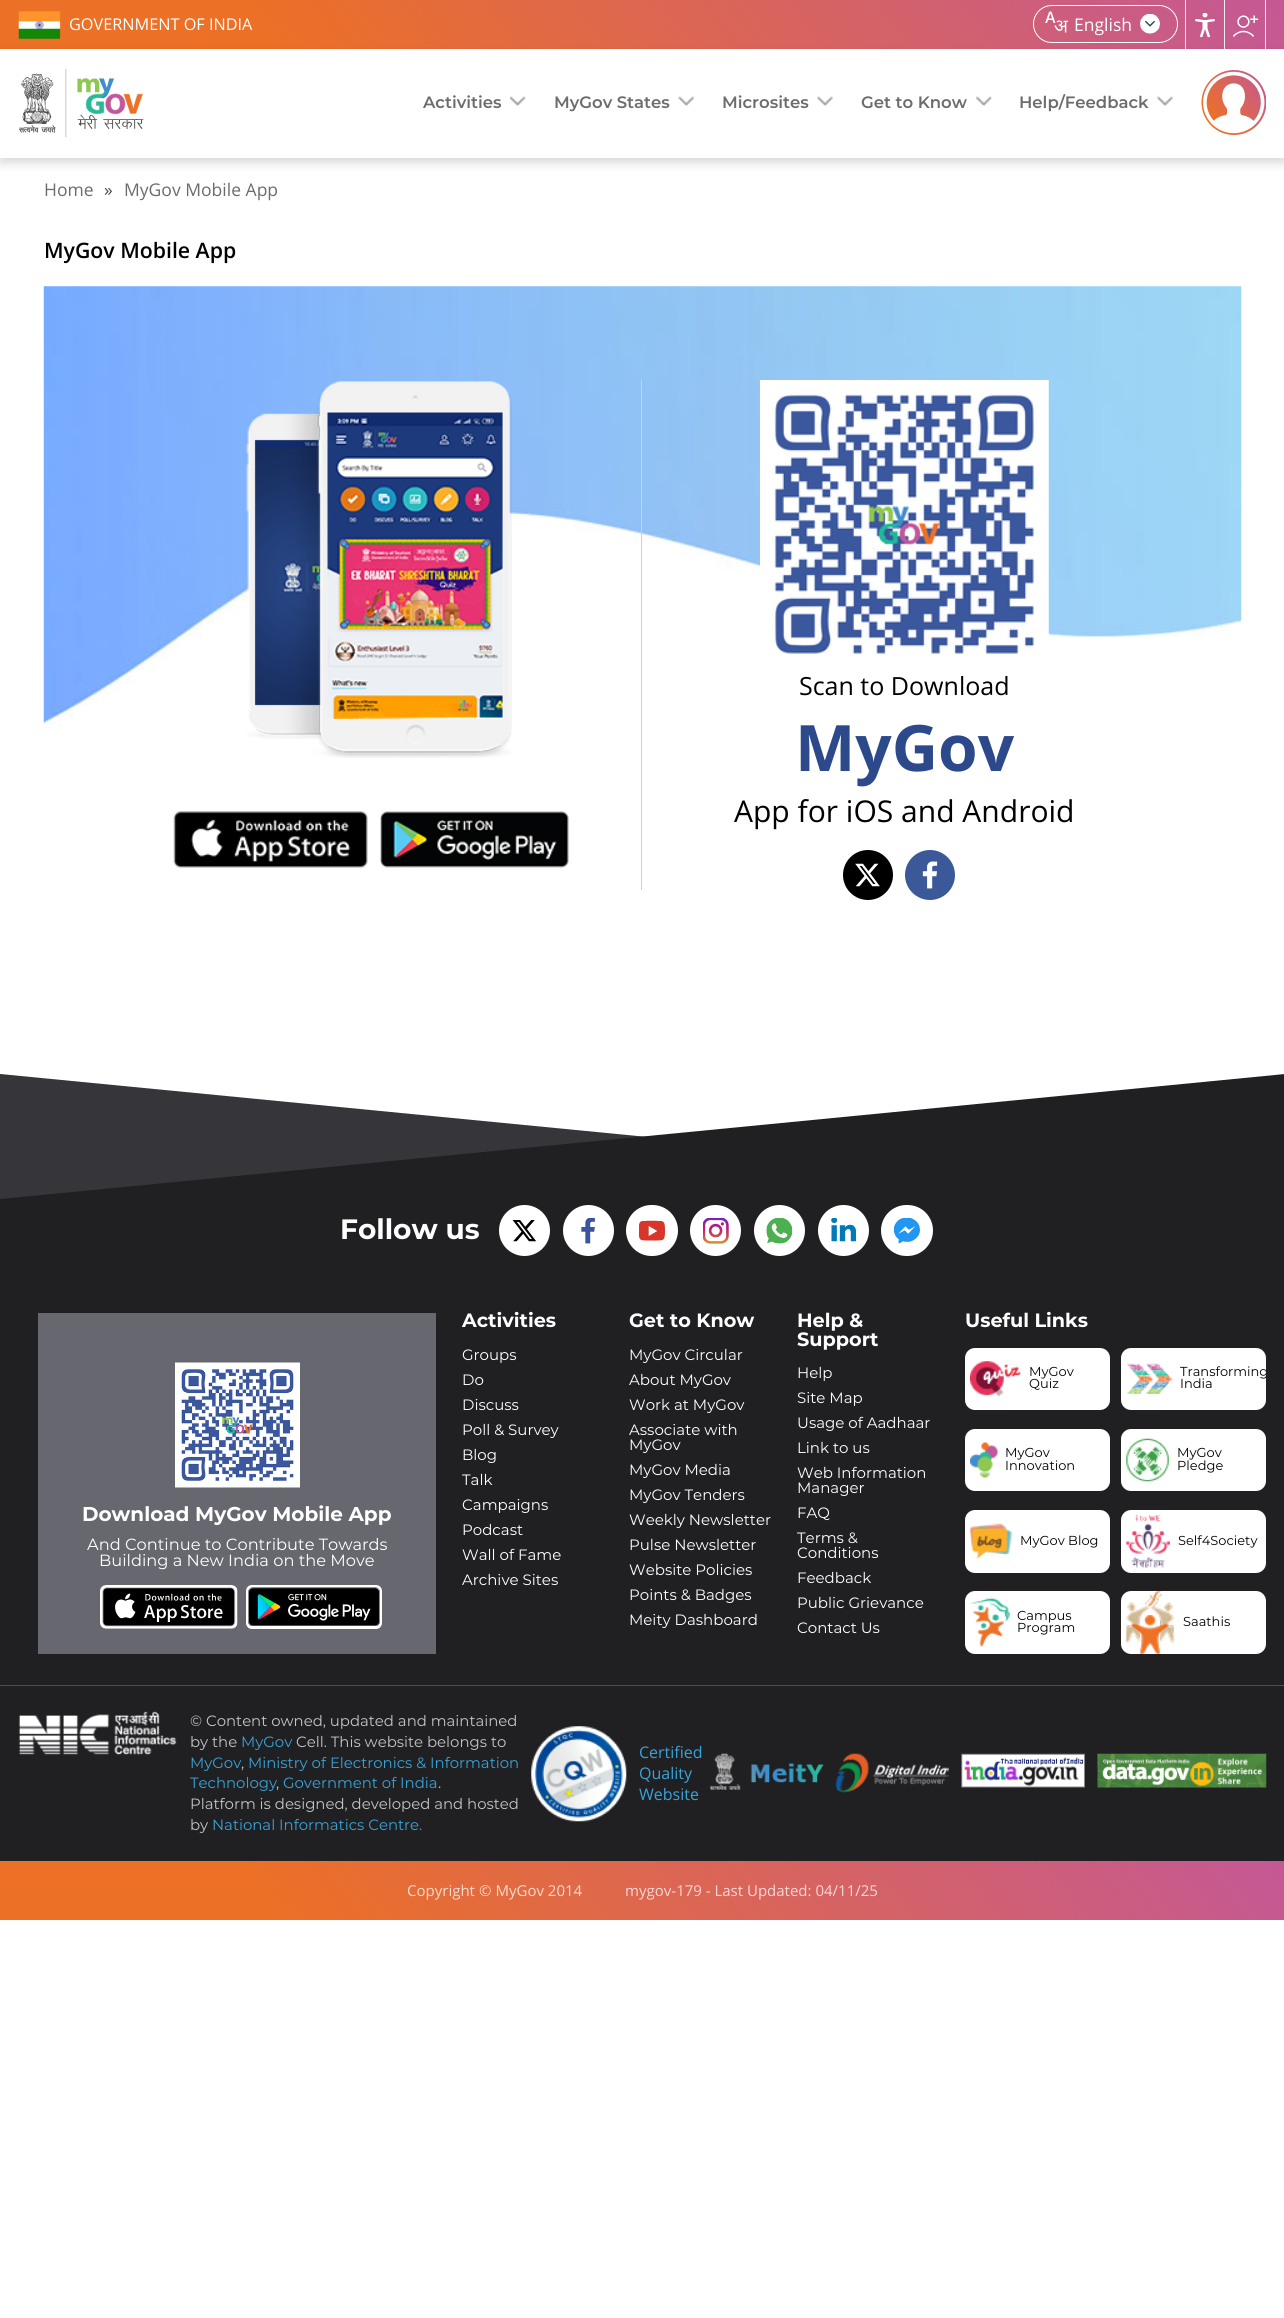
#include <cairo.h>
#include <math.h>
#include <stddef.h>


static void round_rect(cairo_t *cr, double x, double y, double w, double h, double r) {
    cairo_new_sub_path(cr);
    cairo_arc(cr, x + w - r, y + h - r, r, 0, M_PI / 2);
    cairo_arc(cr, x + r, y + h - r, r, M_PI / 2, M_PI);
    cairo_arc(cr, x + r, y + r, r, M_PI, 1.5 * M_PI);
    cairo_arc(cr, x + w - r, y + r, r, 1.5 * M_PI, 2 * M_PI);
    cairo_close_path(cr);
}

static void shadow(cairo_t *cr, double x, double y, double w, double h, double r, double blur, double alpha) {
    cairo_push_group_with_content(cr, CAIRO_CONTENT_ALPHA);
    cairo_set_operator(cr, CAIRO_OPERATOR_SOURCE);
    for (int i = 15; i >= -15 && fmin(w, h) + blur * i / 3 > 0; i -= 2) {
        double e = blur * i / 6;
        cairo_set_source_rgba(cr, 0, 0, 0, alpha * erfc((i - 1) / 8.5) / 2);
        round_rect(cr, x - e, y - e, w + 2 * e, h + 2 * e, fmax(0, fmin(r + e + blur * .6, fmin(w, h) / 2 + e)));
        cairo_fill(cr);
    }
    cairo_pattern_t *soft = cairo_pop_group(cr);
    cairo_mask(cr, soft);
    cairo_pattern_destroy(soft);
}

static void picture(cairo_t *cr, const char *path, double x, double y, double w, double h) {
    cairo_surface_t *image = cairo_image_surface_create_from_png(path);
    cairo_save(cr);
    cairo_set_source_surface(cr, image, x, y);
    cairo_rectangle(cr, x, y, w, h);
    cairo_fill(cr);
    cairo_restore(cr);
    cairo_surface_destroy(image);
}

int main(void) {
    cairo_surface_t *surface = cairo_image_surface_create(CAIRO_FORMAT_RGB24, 1284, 2318);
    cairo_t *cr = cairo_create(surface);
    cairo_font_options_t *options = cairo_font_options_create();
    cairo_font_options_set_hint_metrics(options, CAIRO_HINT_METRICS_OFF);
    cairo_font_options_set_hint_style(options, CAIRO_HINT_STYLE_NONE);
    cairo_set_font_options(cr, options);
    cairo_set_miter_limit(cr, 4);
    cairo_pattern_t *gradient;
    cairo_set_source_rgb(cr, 1, 1, 1);
    cairo_paint(cr);
    gradient = cairo_pattern_create_linear(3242, -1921, 219, 341);
    cairo_pattern_add_color_stop_rgba(gradient, 0, 0.557, 0.784, 0.314, 1);
    cairo_pattern_add_color_stop_rgba(gradient, 0.25, 0.259, 0.553, 0.796, 1);
    cairo_pattern_add_color_stop_rgba(gradient, 0.49, 0.165, 0.725, 0.596, 1);
    cairo_pattern_add_color_stop_rgba(gradient, 0.71, 0.761, 0.341, 0.608, 1);
    cairo_pattern_add_color_stop_rgba(gradient, 0.94, 0.925, 0.439, 0.149, 1);
    cairo_set_source(cr, gradient);
    cairo_pattern_destroy(gradient);
    cairo_rectangle(cr, 0, 0, 1284, 49);
    cairo_fill(cr);
    picture(cr, "img1.png", 18, 11, 43, 28);
    cairo_select_font_face(cr, "Open Sans", CAIRO_FONT_SLANT_NORMAL, CAIRO_FONT_WEIGHT_NORMAL);
    cairo_set_font_size(cr, 16.25);
    cairo_set_source_rgb(cr, 1, 1, 1);
    cairo_move_to(cr, 69, 30);
    cairo_show_text(cr, "GOVERNMENT OF INDIA");
    cairo_set_source_rgb(cr, 0.918, 0.918, 0.918);
    cairo_rectangle(cr, 1185, 0, 1, 49);
    cairo_fill(cr);
    round_rect(cr, 1033.5, 5.5, 144, 37, 18.5);
    cairo_set_source_rgb(cr, 1, 1, 1);
    cairo_set_line_width(cr, 1);
    cairo_stroke(cr);
    picture(cr, "img2.png", 1045, 11, 24, 22);
    cairo_set_font_size(cr, 17.5);
    cairo_move_to(cr, 1074, 31);
    cairo_show_text(cr, "English");
    picture(cr, "img3.png", 1140, 14, 20, 20);
    cairo_set_source_rgb(cr, 0.918, 0.918, 0.918);
    cairo_rectangle(cr, 1224, 0, 1, 49);
    cairo_fill(cr);
    picture(cr, "img4.png", 1195, 13, 20, 25);
    cairo_rectangle(cr, 1265, 0, 1, 49);
    cairo_fill(cr);
    picture(cr, "img5.png", 1232, 15, 27, 22);
    cairo_set_source_rgb(cr, 0, 0, 0);
    shadow(cr, 0, 54, 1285, 109, 0, 5, 0.15);
    cairo_set_source_rgb(cr, 1, 1, 1);
    cairo_rectangle(cr, 0, 49, 1284, 109);
    cairo_fill(cr);
    picture(cr, "img6.png", 19, 69, 125, 69);
    cairo_select_font_face(cr, "Montserrat SemiBold", CAIRO_FONT_SLANT_NORMAL, CAIRO_FONT_WEIGHT_NORMAL);
    cairo_set_font_size(cr, 16.5);
    cairo_set_source_rgb(cr, 0.424, 0.424, 0.424);
    cairo_move_to(cr, 423, 108);
    cairo_show_text(cr, "Activities");
    picture(cr, "img7.png", 510, 96, 16, 11);
    cairo_move_to(cr, 554, 108);
    cairo_show_text(cr, "MyGov States");
    picture(cr, "img8.png", 678, 96, 16, 11);
    cairo_move_to(cr, 722, 108);
    cairo_show_text(cr, "Microsites");
    picture(cr, "img9.png", 817, 96, 16, 11);
    cairo_move_to(cr, 861, 108);
    cairo_show_text(cr, "Get to Know");
    picture(cr, "img10.png", 976, 96, 16, 11);
    cairo_move_to(cr, 1019, 108);
    cairo_show_text(cr, "Help/Feedback");
    picture(cr, "img9.png", 1157, 96, 16, 11);
    picture(cr, "img11.png", 1201, 70, 65, 65);
    cairo_select_font_face(cr, "Open Sans", CAIRO_FONT_SLANT_NORMAL, CAIRO_FONT_WEIGHT_NORMAL);
    cairo_set_font_size(cr, 17.5);
    cairo_move_to(cr, 44, 196);
    cairo_show_text(cr, "Home");
    cairo_set_source_rgb(cr, 0.302, 0.302, 0.302);
    cairo_move_to(cr, 104, 196);
    cairo_show_text(cr, "»");
    cairo_set_source_rgb(cr, 0.424, 0.424, 0.424);
    cairo_move_to(cr, 124, 196);
    cairo_show_text(cr, "MyGov Mobile App");
    cairo_select_font_face(cr, "Open Sans SemiBold", CAIRO_FONT_SLANT_NORMAL, CAIRO_FONT_WEIGHT_NORMAL);
    cairo_set_font_size(cr, 21.25);
    cairo_set_source_rgb(cr, 0, 0, 0);
    cairo_move_to(cr, 44, 258);
    cairo_show_text(cr, "MyGov Mobile App");
    picture(cr, "img12.png", 43, 286, 1199, 444);
    cairo_set_source_rgb(cr, 0.698, 0.843, 0.984);
    cairo_rectangle(cr, 641, 380, 1, 510);
    cairo_fill(cr);
    picture(cr, "img13.png", 246, 381, 266, 377);
    picture(cr, "img14.png", 173, 811, 195, 57);
    picture(cr, "img15.png", 380, 811, 189, 57);
    picture(cr, "img16.png", 760, 380, 289, 274);
    cairo_select_font_face(cr, "Open Sans", CAIRO_FONT_SLANT_NORMAL, CAIRO_FONT_WEIGHT_NORMAL);
    cairo_set_font_size(cr, 25);
    cairo_set_source_rgb(cr, 0, 0, 0);
    cairo_move_to(cr, 799, 695);
    cairo_show_text(cr, "Scan to Download");
    cairo_select_font_face(cr, "Open Sans", CAIRO_FONT_SLANT_NORMAL, CAIRO_FONT_WEIGHT_BOLD);
    cairo_set_font_size(cr, 64);
    cairo_set_source_rgb(cr, 0.173, 0.29, 0.545);
    cairo_move_to(cr, 795, 771);
    cairo_show_text(cr, "MyGov");
    cairo_select_font_face(cr, "Open Sans", CAIRO_FONT_SLANT_NORMAL, CAIRO_FONT_WEIGHT_NORMAL);
    cairo_set_font_size(cr, 30);
    cairo_set_source_rgb(cr, 0, 0, 0);
    cairo_move_to(cr, 734, 822);
    cairo_show_text(cr, "App for iOS and Android");
    cairo_new_path(cr);
    cairo_arc(cr, 868, 875, 25, 0, 2 * M_PI);
    cairo_fill(cr);
    picture(cr, "img17.png", 855, 863, 25, 24);
    cairo_set_source_rgb(cr, 0.231, 0.349, 0.596);
    cairo_arc(cr, 930, 875, 25, 0, 2 * M_PI);
    cairo_fill(cr);
    picture(cr, "img18.png", 922, 861, 16, 28);
    cairo_set_source_rgb(cr, 0.125, 0.125, 0.137);
    cairo_rectangle(cr, 0, 1199, 1284, 662);
    cairo_fill(cr);
    cairo_set_source_rgb(cr, 0.212, 0.212, 0.227);
    cairo_new_path(cr);
    cairo_move_to(cr, 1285, 1199);
    cairo_line_to(cr, 0, 1199);
    cairo_line_to(cr, 0, 1074);
    cairo_close_path(cr);
    cairo_fill(cr);
    cairo_set_source_rgb(cr, 0.125, 0.125, 0.137);
    cairo_new_path(cr);
    cairo_move_to(cr, 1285, 1199);
    cairo_line_to(cr, 0, 1199);
    cairo_line_to(cr, 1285, 1074);
    cairo_close_path(cr);
    cairo_fill(cr);
    cairo_select_font_face(cr, "Montserrat", CAIRO_FONT_SLANT_NORMAL, CAIRO_FONT_WEIGHT_BOLD);
    cairo_set_font_size(cr, 28);
    cairo_set_source_rgb(cr, 1, 1, 1);
    cairo_move_to(cr, 340, 1239);
    cairo_show_text(cr, "Follow us");
    cairo_new_path(cr);
    cairo_arc(cr, 524.5, 1230.5, 25.5, 0, 2 * M_PI);
    cairo_fill(cr);
    picture(cr, "img19.png", 512, 1220, 24, 22);
    cairo_arc(cr, 588.5, 1230.5, 25.5, 0, 2 * M_PI);
    cairo_fill(cr);
    picture(cr, "img20.png", 581, 1218, 14, 26);
    round_rect(cr, 626, 1205, 52, 51, 25.5);
    cairo_fill(cr);
    picture(cr, "img21.png", 639, 1220, 26, 21);
    cairo_arc(cr, 715.5, 1230.5, 25.5, 0, 2 * M_PI);
    cairo_fill(cr);
    picture(cr, "img22.png", 703, 1218, 26, 26);
    cairo_arc(cr, 779.5, 1230.5, 25.5, 0, 2 * M_PI);
    cairo_fill(cr);
    picture(cr, "img23.png", 766, 1218, 27, 26);
    cairo_arc(cr, 843.5, 1230.5, 25.5, 0, 2 * M_PI);
    cairo_fill(cr);
    picture(cr, "img24.png", 831, 1218, 25, 24);
    round_rect(cr, 881, 1205, 52, 51, 25.5);
    cairo_fill(cr);
    picture(cr, "img25.png", 894, 1218, 26, 26);
    cairo_set_source_rgb(cr, 0.404, 0.404, 0.435);
    cairo_rectangle(cr, 38, 1313, 398, 341);
    cairo_fill(cr);
    picture(cr, "img26.png", 175, 1362, 125, 126);
    cairo_set_font_size(cr, 20);
    cairo_set_source_rgb(cr, 1, 1, 1);
    cairo_move_to(cr, 82, 1521);
    cairo_show_text(cr, "Download MyGov Mobile App");
    cairo_select_font_face(cr, "Montserrat", CAIRO_FONT_SLANT_NORMAL, CAIRO_FONT_WEIGHT_NORMAL);
    cairo_set_font_size(cr, 16.25);
    cairo_move_to(cr, 87, 1550);
    cairo_show_text(cr, "And Continue to Contribute Towards");
    cairo_move_to(cr, 99, 1566);
    cairo_show_text(cr, "Building a New India on the Move");
    picture(cr, "img27.png", 100, 1585, 138, 44);
    picture(cr, "img28.png", 246, 1585, 136, 44);
    cairo_select_font_face(cr, "Montserrat", CAIRO_FONT_SLANT_NORMAL, CAIRO_FONT_WEIGHT_BOLD);
    cairo_set_font_size(cr, 19.25);
    cairo_move_to(cr, 462, 1327);
    cairo_show_text(cr, "Activities");
    cairo_select_font_face(cr, "Montserrat", CAIRO_FONT_SLANT_NORMAL, CAIRO_FONT_WEIGHT_NORMAL);
    cairo_set_font_size(cr, 15);
    cairo_move_to(cr, 462, 1360);
    cairo_show_text(cr, "Groups");
    cairo_move_to(cr, 462, 1385);
    cairo_show_text(cr, "Do");
    cairo_move_to(cr, 462, 1410);
    cairo_show_text(cr, "Discuss");
    cairo_move_to(cr, 462, 1435);
    cairo_show_text(cr, "Poll & Survey");
    cairo_move_to(cr, 462, 1460);
    cairo_show_text(cr, "Blog");
    cairo_move_to(cr, 462, 1485);
    cairo_show_text(cr, "Talk");
    cairo_move_to(cr, 462, 1510);
    cairo_show_text(cr, "Campaigns");
    cairo_move_to(cr, 462, 1535);
    cairo_show_text(cr, "Podcast");
    cairo_move_to(cr, 462, 1560);
    cairo_show_text(cr, "Wall of Fame");
    cairo_move_to(cr, 462, 1585);
    cairo_show_text(cr, "Archive Sites");
    cairo_select_font_face(cr, "Montserrat", CAIRO_FONT_SLANT_NORMAL, CAIRO_FONT_WEIGHT_BOLD);
    cairo_set_font_size(cr, 19.25);
    cairo_move_to(cr, 629, 1327);
    cairo_show_text(cr, "Get to Know");
    cairo_select_font_face(cr, "Montserrat", CAIRO_FONT_SLANT_NORMAL, CAIRO_FONT_WEIGHT_NORMAL);
    cairo_set_font_size(cr, 15);
    cairo_move_to(cr, 629, 1360);
    cairo_show_text(cr, "MyGov Circular");
    cairo_move_to(cr, 629, 1385);
    cairo_show_text(cr, "About MyGov");
    cairo_move_to(cr, 629, 1410);
    cairo_show_text(cr, "Work at MyGov");
    cairo_move_to(cr, 629, 1435);
    cairo_show_text(cr, "Associate with");
    cairo_move_to(cr, 629, 1450);
    cairo_show_text(cr, "MyGov");
    cairo_move_to(cr, 629, 1475);
    cairo_show_text(cr, "MyGov Media");
    cairo_move_to(cr, 629, 1500);
    cairo_show_text(cr, "MyGov Tenders");
    cairo_move_to(cr, 629, 1525);
    cairo_show_text(cr, "Weekly Newsletter");
    cairo_move_to(cr, 629, 1550);
    cairo_show_text(cr, "Pulse Newsletter");
    cairo_move_to(cr, 629, 1575);
    cairo_show_text(cr, "Website Policies");
    cairo_move_to(cr, 629, 1600);
    cairo_show_text(cr, "Points & Badges");
    cairo_move_to(cr, 629, 1625);
    cairo_show_text(cr, "Meity Dashboard");
    cairo_select_font_face(cr, "Montserrat", CAIRO_FONT_SLANT_NORMAL, CAIRO_FONT_WEIGHT_BOLD);
    cairo_set_font_size(cr, 19.25);
    cairo_move_to(cr, 797, 1327);
    cairo_show_text(cr, "Help &");
    cairo_move_to(cr, 797, 1346);
    cairo_show_text(cr, "Support");
    cairo_select_font_face(cr, "Montserrat", CAIRO_FONT_SLANT_NORMAL, CAIRO_FONT_WEIGHT_NORMAL);
    cairo_set_font_size(cr, 15);
    cairo_move_to(cr, 797, 1378);
    cairo_show_text(cr, "Help");
    cairo_move_to(cr, 797, 1403);
    cairo_show_text(cr, "Site Map");
    cairo_move_to(cr, 797, 1428);
    cairo_show_text(cr, "Usage of Aadhaar");
    cairo_move_to(cr, 797, 1453);
    cairo_show_text(cr, "Link to us");
    cairo_move_to(cr, 797, 1478);
    cairo_show_text(cr, "Web Information");
    cairo_move_to(cr, 797, 1493);
    cairo_show_text(cr, "Manager");
    cairo_move_to(cr, 797, 1518);
    cairo_show_text(cr, "FAQ");
    cairo_move_to(cr, 797, 1543);
    cairo_show_text(cr, "Terms &");
    cairo_move_to(cr, 797, 1558);
    cairo_show_text(cr, "Conditions");
    cairo_move_to(cr, 797, 1583);
    cairo_show_text(cr, "Feedback");
    cairo_move_to(cr, 797, 1608);
    cairo_show_text(cr, "Public Grievance");
    cairo_move_to(cr, 797, 1633);
    cairo_show_text(cr, "Contact Us");
    cairo_select_font_face(cr, "Montserrat", CAIRO_FONT_SLANT_NORMAL, CAIRO_FONT_WEIGHT_BOLD);
    cairo_set_font_size(cr, 19.25);
    cairo_move_to(cr, 965, 1327);
    cairo_show_text(cr, "Useful Links");
    round_rect(cr, 965, 1348, 145, 62, 10);
    cairo_fill(cr);
    picture(cr, "img29.png", 970, 1361, 52, 36);
    cairo_select_font_face(cr, "Montserrat", CAIRO_FONT_SLANT_NORMAL, CAIRO_FONT_WEIGHT_NORMAL);
    cairo_set_font_size(cr, 13);
    cairo_set_source_rgb(cr, 0, 0, 0);
    cairo_move_to(cr, 1029, 1376);
    cairo_show_text(cr, "MyGov");
    cairo_move_to(cr, 1029, 1388);
    cairo_show_text(cr, "Quiz");
    cairo_set_source_rgb(cr, 1, 1, 1);
    round_rect(cr, 1121, 1348, 145, 62, 10);
    cairo_fill(cr);
    picture(cr, "img30.png", 1127, 1363, 46, 31);
    cairo_save(cr);
    round_rect(cr, 1121, 1348, 145, 62, 10);
    cairo_clip(cr);
    cairo_set_source_rgb(cr, 0, 0, 0);
    cairo_move_to(cr, 1180, 1376);
    cairo_show_text(cr, "Transforming");
    cairo_restore(cr);
    cairo_set_source_rgb(cr, 0, 0, 0);
    cairo_move_to(cr, 1180, 1388);
    cairo_show_text(cr, "India");
    cairo_set_source_rgb(cr, 1, 1, 1);
    round_rect(cr, 965, 1429, 145, 62, 10);
    cairo_fill(cr);
    picture(cr, "img31.png", 970, 1442, 28, 36);
    cairo_set_source_rgb(cr, 0, 0, 0);
    cairo_move_to(cr, 1005, 1457);
    cairo_show_text(cr, "MyGov");
    cairo_move_to(cr, 1005, 1470);
    cairo_show_text(cr, "Innovation");
    cairo_set_source_rgb(cr, 1, 1, 1);
    round_rect(cr, 1121, 1429, 145, 62, 10);
    cairo_fill(cr);
    picture(cr, "img32.png", 1126, 1438, 43, 44);
    cairo_set_source_rgb(cr, 0, 0, 0);
    cairo_move_to(cr, 1177, 1457);
    cairo_show_text(cr, "MyGov");
    cairo_move_to(cr, 1177, 1470);
    cairo_show_text(cr, "Pledge");
    cairo_set_source_rgb(cr, 1, 1, 1);
    round_rect(cr, 965, 1510, 145, 63, 10);
    cairo_fill(cr);
    picture(cr, "img33.png", 970, 1523, 43, 36);
    cairo_set_source_rgb(cr, 0, 0, 0);
    cairo_move_to(cr, 1020, 1545);
    cairo_show_text(cr, "MyGov Blog");
    cairo_set_source_rgb(cr, 1, 1, 1);
    round_rect(cr, 1121, 1510, 145, 63, 10);
    cairo_fill(cr);
    picture(cr, "img34.png", 1126, 1515, 44, 53);
    cairo_set_source_rgb(cr, 0, 0, 0);
    cairo_move_to(cr, 1178, 1545);
    cairo_show_text(cr, "Self4Society");
    cairo_set_source_rgb(cr, 1, 1, 1);
    round_rect(cr, 965, 1591, 145, 63, 10);
    cairo_fill(cr);
    picture(cr, "img35.png", 970, 1598, 40, 49);
    cairo_set_source_rgb(cr, 0, 0, 0);
    cairo_move_to(cr, 1017, 1620);
    cairo_show_text(cr, "Campus");
    cairo_move_to(cr, 1017, 1632);
    cairo_show_text(cr, "Program");
    cairo_set_source_rgb(cr, 1, 1, 1);
    round_rect(cr, 1121, 1591, 145, 63, 10);
    cairo_fill(cr);
    picture(cr, "img36.png", 1126, 1591, 49, 63);
    cairo_set_source_rgb(cr, 0, 0, 0);
    cairo_move_to(cr, 1183, 1626);
    cairo_show_text(cr, "Saathis");
    cairo_set_source_rgb(cr, 0.325, 0.306, 0.306);
    cairo_rectangle(cr, 0, 1685, 1284, 1);
    cairo_fill(cr);
    picture(cr, "img37.png", 18, 1711, 159, 44);
    cairo_set_font_size(cr, 14.9);
    cairo_set_source_rgb(cr, 0.773, 0.773, 0.773);
    cairo_move_to(cr, 190, 1726);
    cairo_show_text(cr, "© Content owned, updated and maintained");
    cairo_move_to(cr, 190, 1747);
    cairo_show_text(cr, "by the");
    cairo_set_source_rgb(cr, 0.22, 0.639, 0.843);
    cairo_move_to(cr, 241, 1747);
    cairo_show_text(cr, "MyGov");
    cairo_set_source_rgb(cr, 0.773, 0.773, 0.773);
    cairo_move_to(cr, 296, 1747);
    cairo_show_text(cr, "Cell. This website belongs to");
    cairo_set_source_rgb(cr, 0.22, 0.639, 0.843);
    cairo_move_to(cr, 190, 1768);
    cairo_show_text(cr, "MyGov");
    cairo_set_source_rgb(cr, 0.773, 0.773, 0.773);
    cairo_move_to(cr, 241, 1768);
    cairo_show_text(cr, ",");
    cairo_set_source_rgb(cr, 0.22, 0.639, 0.843);
    cairo_move_to(cr, 248, 1768);
    cairo_show_text(cr, "Ministry of Electronics & Information");
    cairo_move_to(cr, 190, 1788);
    cairo_show_text(cr, "Technology");
    cairo_set_source_rgb(cr, 0.773, 0.773, 0.773);
    cairo_move_to(cr, 276, 1788);
    cairo_show_text(cr, ",");
    cairo_set_source_rgb(cr, 0.22, 0.639, 0.843);
    cairo_move_to(cr, 283, 1788);
    cairo_show_text(cr, "Government of India");
    cairo_set_source_rgb(cr, 0.773, 0.773, 0.773);
    cairo_move_to(cr, 438, 1788);
    cairo_show_text(cr, ".");
    cairo_move_to(cr, 190, 1809);
    cairo_show_text(cr, "Platform is designed, developed and hosted");
    cairo_move_to(cr, 190, 1830);
    cairo_show_text(cr, "by");
    cairo_set_source_rgb(cr, 0.22, 0.639, 0.843);
    cairo_move_to(cr, 212, 1830);
    cairo_show_text(cr, "National Informatics Centre.");
    picture(cr, "img38.png", 531, 1726, 96, 96);
    cairo_select_font_face(cr, "Open Sans", CAIRO_FONT_SLANT_NORMAL, CAIRO_FONT_WEIGHT_NORMAL);
    cairo_set_font_size(cr, 16);
    cairo_move_to(cr, 639, 1758);
    cairo_show_text(cr, "Certified");
    cairo_move_to(cr, 639, 1779);
    cairo_show_text(cr, "Quality");
    cairo_move_to(cr, 639, 1800);
    cairo_show_text(cr, "Website");
    picture(cr, "img39.png", 710, 1753, 114, 37);
    picture(cr, "img40.png", 836, 1753, 113, 40);
    picture(cr, "img41.png", 961, 1753, 124, 35);
    picture(cr, "img42.png", 1097, 1753, 170, 35);
    gradient = cairo_pattern_create_linear(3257, -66, 217, 2209);
    cairo_pattern_add_color_stop_rgba(gradient, 0, 0.557, 0.784, 0.314, 1);
    cairo_pattern_add_color_stop_rgba(gradient, 0.25, 0.259, 0.553, 0.796, 1);
    cairo_pattern_add_color_stop_rgba(gradient, 0.49, 0.165, 0.725, 0.596, 1);
    cairo_pattern_add_color_stop_rgba(gradient, 0.71, 0.761, 0.341, 0.608, 1);
    cairo_pattern_add_color_stop_rgba(gradient, 0.94, 0.925, 0.439, 0.149, 1);
    cairo_set_source(cr, gradient);
    cairo_pattern_destroy(gradient);
    cairo_rectangle(cr, 0, 1861, 1284, 59);
    cairo_fill(cr);
    cairo_set_font_size(cr, 15);
    cairo_set_source_rgb(cr, 0.976, 0.855, 0.808);
    cairo_move_to(cr, 407, 1896);
    cairo_show_text(cr, "Copyright");
    cairo_move_to(cr, 479, 1896);
    cairo_show_text(cr, "© MyGov 2014");
    cairo_set_source_rgb(cr, 0.965, 0.847, 0.839);
    cairo_move_to(cr, 625, 1896);
    cairo_show_text(cr, "mygov-179 - Last Updated: 04/11/25");
    cairo_surface_write_to_png(surface, "page.png");
    cairo_font_options_destroy(options);
    cairo_destroy(cr);
    cairo_surface_destroy(surface);
    return 0;
}
